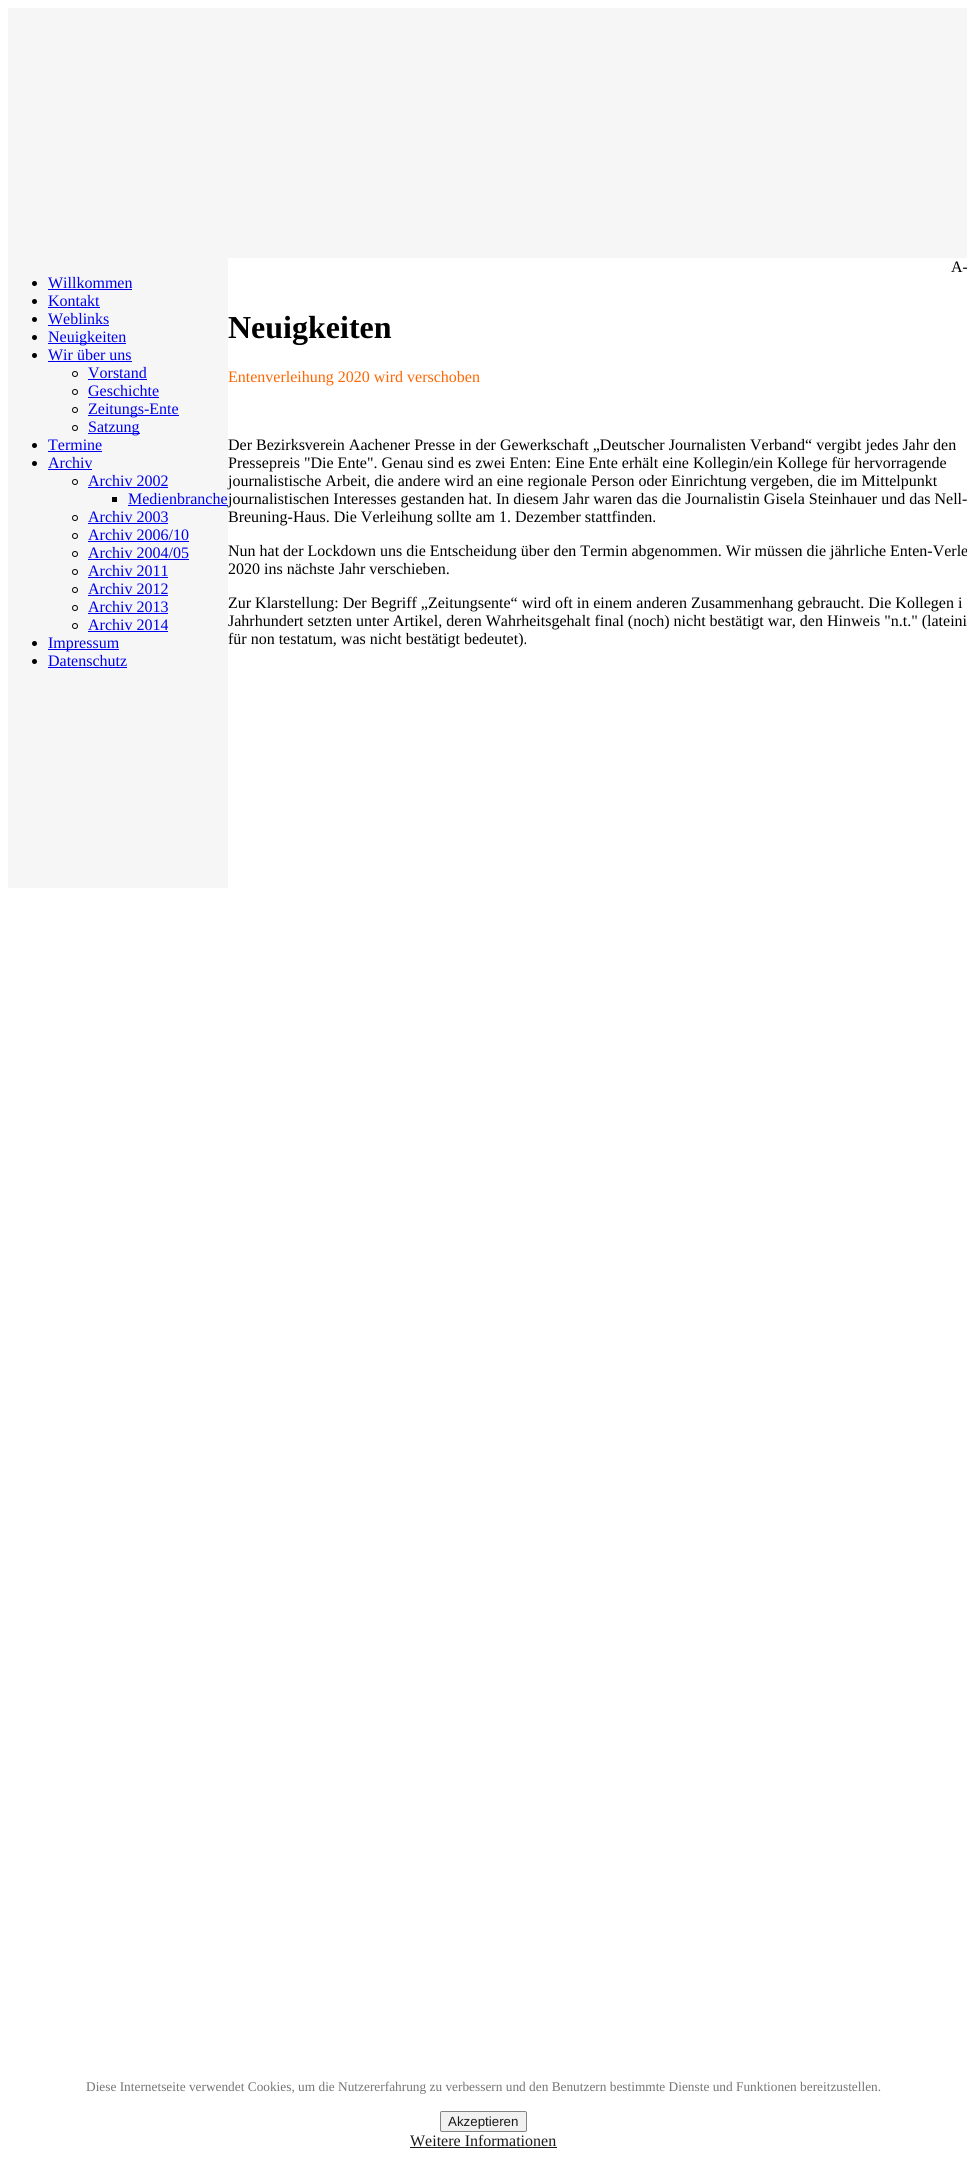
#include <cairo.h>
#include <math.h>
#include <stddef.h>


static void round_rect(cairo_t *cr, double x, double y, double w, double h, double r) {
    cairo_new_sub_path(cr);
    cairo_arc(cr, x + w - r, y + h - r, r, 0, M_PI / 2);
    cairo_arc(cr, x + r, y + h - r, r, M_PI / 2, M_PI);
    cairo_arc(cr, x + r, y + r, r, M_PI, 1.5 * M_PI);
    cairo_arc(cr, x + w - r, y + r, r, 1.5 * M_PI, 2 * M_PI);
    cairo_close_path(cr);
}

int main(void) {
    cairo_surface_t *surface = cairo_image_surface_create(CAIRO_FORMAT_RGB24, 967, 2160);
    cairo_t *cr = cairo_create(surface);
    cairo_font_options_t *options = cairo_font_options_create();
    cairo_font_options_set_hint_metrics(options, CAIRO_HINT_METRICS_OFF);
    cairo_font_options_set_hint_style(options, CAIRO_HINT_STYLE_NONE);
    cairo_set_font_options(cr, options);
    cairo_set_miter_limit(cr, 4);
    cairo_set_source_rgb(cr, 1, 1, 1);
    cairo_paint(cr);
    cairo_set_source_rgb(cr, 0.961, 0.961, 0.961);
    cairo_rectangle(cr, 8, 8, 959, 250);
    cairo_fill(cr);
    cairo_select_font_face(cr, "Liberation Serif", CAIRO_FONT_SLANT_NORMAL, CAIRO_FONT_WEIGHT_NORMAL);
    cairo_set_font_size(cr, 16);
    cairo_set_source_rgb(cr, 0, 0, 0);
    cairo_move_to(cr, 951, 272);
    cairo_show_text(cr, "A-");
    cairo_set_source_rgb(cr, 0.961, 0.961, 0.961);
    cairo_rectangle(cr, 8, 258, 220, 630);
    cairo_fill(cr);
    cairo_set_source_rgb(cr, 0, 0, 0);
    cairo_arc(cr, 34.5, 283.5, 2.5, 0, 2 * M_PI);
    cairo_fill(cr);
    cairo_set_source_rgb(cr, 0, 0, 0.933);
    cairo_move_to(cr, 48, 288);
    cairo_show_text(cr, "Willkommen");
    cairo_rectangle(cr, 48, 289, 84, 1);
    cairo_fill(cr);
    cairo_set_source_rgb(cr, 0, 0, 0);
    cairo_arc(cr, 34.5, 301.5, 2.5, 0, 2 * M_PI);
    cairo_fill(cr);
    cairo_set_source_rgb(cr, 0, 0, 0.933);
    cairo_move_to(cr, 48, 306);
    cairo_show_text(cr, "Kontakt");
    cairo_rectangle(cr, 48, 307, 52, 1);
    cairo_fill(cr);
    cairo_set_source_rgb(cr, 0, 0, 0);
    cairo_arc(cr, 34.5, 319.5, 2.5, 0, 2 * M_PI);
    cairo_fill(cr);
    cairo_set_source_rgb(cr, 0, 0, 0.933);
    cairo_move_to(cr, 48, 324);
    cairo_show_text(cr, "Weblinks");
    cairo_rectangle(cr, 48, 325, 61, 1);
    cairo_fill(cr);
    cairo_set_source_rgb(cr, 0, 0, 0);
    cairo_arc(cr, 34.5, 337.5, 2.5, 0, 2 * M_PI);
    cairo_fill(cr);
    cairo_set_source_rgb(cr, 0, 0, 0.933);
    cairo_rectangle(cr, 48, 343, 78, 1);
    cairo_fill(cr);
    cairo_move_to(cr, 48, 342);
    cairo_show_text(cr, "Neuigkeiten");
    cairo_set_source_rgb(cr, 0, 0, 0);
    cairo_new_path(cr);
    cairo_arc(cr, 34.5, 355.5, 2.5, 0, 2 * M_PI);
    cairo_fill(cr);
    cairo_set_source_rgb(cr, 0, 0, 0.933);
    cairo_move_to(cr, 48, 360);
    cairo_show_text(cr, "Wir über uns");
    cairo_rectangle(cr, 48, 361, 84, 1);
    cairo_fill(cr);
    cairo_arc(cr, 75, 374, 2.5, 0, 2 * M_PI);
    cairo_set_source_rgb(cr, 0, 0, 0);
    cairo_set_line_width(cr, 1);
    cairo_stroke(cr);
    cairo_set_source_rgb(cr, 0, 0, 0.933);
    cairo_move_to(cr, 88, 378);
    cairo_show_text(cr, "Vorstand");
    cairo_rectangle(cr, 88, 379, 59, 1);
    cairo_fill(cr);
    cairo_arc(cr, 75, 392, 2.5, 0, 2 * M_PI);
    cairo_set_source_rgb(cr, 0, 0, 0);
    cairo_stroke(cr);
    cairo_set_source_rgb(cr, 0, 0, 0.933);
    cairo_move_to(cr, 88, 396);
    cairo_show_text(cr, "Geschichte");
    cairo_rectangle(cr, 88, 397, 71, 1);
    cairo_fill(cr);
    cairo_arc(cr, 75, 410, 2.5, 0, 2 * M_PI);
    cairo_set_source_rgb(cr, 0, 0, 0);
    cairo_stroke(cr);
    cairo_set_source_rgb(cr, 0, 0, 0.933);
    cairo_rectangle(cr, 88, 415, 91, 1);
    cairo_fill(cr);
    cairo_move_to(cr, 88, 414);
    cairo_show_text(cr, "Zeitungs-Ente");
    cairo_new_path(cr);
    cairo_arc(cr, 75, 428, 2.5, 0, 2 * M_PI);
    cairo_set_source_rgb(cr, 0, 0, 0);
    cairo_stroke(cr);
    cairo_set_source_rgb(cr, 0, 0, 0.933);
    cairo_rectangle(cr, 88, 433, 52, 1);
    cairo_fill(cr);
    cairo_move_to(cr, 88, 432);
    cairo_show_text(cr, "Satzung");
    cairo_set_source_rgb(cr, 0, 0, 0);
    cairo_new_path(cr);
    cairo_arc(cr, 34.5, 445.5, 2.5, 0, 2 * M_PI);
    cairo_fill(cr);
    cairo_set_source_rgb(cr, 0, 0, 0.933);
    cairo_move_to(cr, 48, 450);
    cairo_show_text(cr, "Termine");
    cairo_rectangle(cr, 48, 451, 54, 1);
    cairo_fill(cr);
    cairo_set_source_rgb(cr, 0, 0, 0);
    cairo_arc(cr, 34.5, 463.5, 2.5, 0, 2 * M_PI);
    cairo_fill(cr);
    cairo_set_source_rgb(cr, 0, 0, 0.933);
    cairo_move_to(cr, 48, 468);
    cairo_show_text(cr, "Archiv");
    cairo_rectangle(cr, 48, 469, 44, 1);
    cairo_fill(cr);
    cairo_arc(cr, 75, 482, 2.5, 0, 2 * M_PI);
    cairo_set_source_rgb(cr, 0, 0, 0);
    cairo_stroke(cr);
    cairo_set_source_rgb(cr, 0, 0, 0.933);
    cairo_move_to(cr, 88, 486);
    cairo_show_text(cr, "Archiv 2002");
    cairo_rectangle(cr, 88, 487, 80, 1);
    cairo_fill(cr);
    cairo_set_source_rgb(cr, 0, 0, 0);
    cairo_rectangle(cr, 112, 497, 5, 5);
    cairo_fill(cr);
    cairo_set_source_rgb(cr, 0, 0, 0.933);
    cairo_move_to(cr, 128, 504);
    cairo_show_text(cr, "Medienbranche");
    cairo_rectangle(cr, 128, 505, 100, 1);
    cairo_fill(cr);
    cairo_arc(cr, 75, 518, 2.5, 0, 2 * M_PI);
    cairo_set_source_rgb(cr, 0, 0, 0);
    cairo_stroke(cr);
    cairo_set_source_rgb(cr, 0, 0, 0.933);
    cairo_move_to(cr, 88, 522);
    cairo_show_text(cr, "Archiv 2003");
    cairo_rectangle(cr, 88, 523, 80, 1);
    cairo_fill(cr);
    cairo_arc(cr, 75, 536, 2.5, 0, 2 * M_PI);
    cairo_set_source_rgb(cr, 0, 0, 0);
    cairo_stroke(cr);
    cairo_set_source_rgb(cr, 0, 0, 0.933);
    cairo_move_to(cr, 88, 540);
    cairo_show_text(cr, "Archiv 2006/10");
    cairo_rectangle(cr, 88, 541, 101, 1);
    cairo_fill(cr);
    cairo_arc(cr, 75, 554, 2.5, 0, 2 * M_PI);
    cairo_set_source_rgb(cr, 0, 0, 0);
    cairo_stroke(cr);
    cairo_set_source_rgb(cr, 0, 0, 0.933);
    cairo_move_to(cr, 88, 558);
    cairo_show_text(cr, "Archiv 2004/05");
    cairo_rectangle(cr, 88, 559, 101, 1);
    cairo_fill(cr);
    cairo_arc(cr, 75, 572, 2.5, 0, 2 * M_PI);
    cairo_set_source_rgb(cr, 0, 0, 0);
    cairo_stroke(cr);
    cairo_set_source_rgb(cr, 0, 0, 0.933);
    cairo_move_to(cr, 88, 576);
    cairo_show_text(cr, "Archiv 2011");
    cairo_rectangle(cr, 88, 577, 80, 1);
    cairo_fill(cr);
    cairo_arc(cr, 75, 590, 2.5, 0, 2 * M_PI);
    cairo_set_source_rgb(cr, 0, 0, 0);
    cairo_stroke(cr);
    cairo_set_source_rgb(cr, 0, 0, 0.933);
    cairo_move_to(cr, 88, 594);
    cairo_show_text(cr, "Archiv 2012");
    cairo_rectangle(cr, 88, 595, 80, 1);
    cairo_fill(cr);
    cairo_arc(cr, 75, 608, 2.5, 0, 2 * M_PI);
    cairo_set_source_rgb(cr, 0, 0, 0);
    cairo_stroke(cr);
    cairo_set_source_rgb(cr, 0, 0, 0.933);
    cairo_move_to(cr, 88, 612);
    cairo_show_text(cr, "Archiv 2013");
    cairo_rectangle(cr, 88, 613, 80, 1);
    cairo_fill(cr);
    cairo_arc(cr, 75, 626, 2.5, 0, 2 * M_PI);
    cairo_set_source_rgb(cr, 0, 0, 0);
    cairo_stroke(cr);
    cairo_set_source_rgb(cr, 0, 0, 0.933);
    cairo_move_to(cr, 88, 630);
    cairo_show_text(cr, "Archiv 2014");
    cairo_rectangle(cr, 88, 631, 80, 1);
    cairo_fill(cr);
    cairo_set_source_rgb(cr, 0, 0, 0);
    cairo_arc(cr, 34.5, 643.5, 2.5, 0, 2 * M_PI);
    cairo_fill(cr);
    cairo_set_source_rgb(cr, 0, 0, 0.933);
    cairo_rectangle(cr, 48, 649, 71, 1);
    cairo_fill(cr);
    cairo_move_to(cr, 48, 648);
    cairo_show_text(cr, "Impressum");
    cairo_set_source_rgb(cr, 0, 0, 0);
    cairo_new_path(cr);
    cairo_arc(cr, 34.5, 661.5, 2.5, 0, 2 * M_PI);
    cairo_fill(cr);
    cairo_set_source_rgb(cr, 0, 0, 0.933);
    cairo_move_to(cr, 48, 666);
    cairo_show_text(cr, "Datenschutz");
    cairo_rectangle(cr, 48, 667, 79, 1);
    cairo_fill(cr);
    cairo_select_font_face(cr, "Liberation Serif", CAIRO_FONT_SLANT_NORMAL, CAIRO_FONT_WEIGHT_BOLD);
    cairo_set_font_size(cr, 32);
    cairo_set_source_rgb(cr, 0, 0, 0);
    cairo_move_to(cr, 228, 338);
    cairo_show_text(cr, "Neuigkeiten");
    cairo_select_font_face(cr, "Liberation Serif", CAIRO_FONT_SLANT_NORMAL, CAIRO_FONT_WEIGHT_NORMAL);
    cairo_set_font_size(cr, 16);
    cairo_set_source_rgb(cr, 1, 0.4, 0);
    cairo_move_to(cr, 228, 382);
    cairo_show_text(cr, "Entenverleihung 2020 wird verschoben");
    cairo_set_source_rgb(cr, 0, 0, 0);
    cairo_move_to(cr, 228, 450);
    cairo_show_text(cr, "Der Bezirksverein Aachener Presse in der Gewerkschaft „Deutscher Journalisten Verband“ vergibt jedes Jahr den");
    cairo_move_to(cr, 228, 468);
    cairo_show_text(cr, "Pressepreis \"Die Ente\". Genau sind es zwei Enten: Eine Ente erhält eine Kollegin/ein Kollege für hervorragende");
    cairo_move_to(cr, 228, 486);
    cairo_show_text(cr, "journalistische Arbeit, die andere wird an eine regionale Person oder Einrichtung vergeben, die im Mittelpunkt");
    cairo_move_to(cr, 228, 504);
    cairo_show_text(cr, "journalistischen Interesses gestanden hat. In diesem Jahr waren das die Journalistin Gisela Steinhauer und das Nell-");
    cairo_move_to(cr, 228, 522);
    cairo_show_text(cr, "Breuning-Haus. Die Verleihung sollte am 1. Dezember stattfinden.");
    cairo_move_to(cr, 228, 556);
    cairo_show_text(cr, "Nun hat der Lockdown uns die Entscheidung über den Termin abgenommen. Wir müssen die jährliche Enten-Verle");
    cairo_move_to(cr, 228, 574);
    cairo_show_text(cr, "2020 ins nächste Jahr verschieben.");
    cairo_move_to(cr, 228, 608);
    cairo_show_text(cr, "Zur Klarstellung: Der Begriff „Zeitungsente“ wird oft in einem anderen Zusammenhang gebraucht. Die Kollegen i");
    cairo_move_to(cr, 228, 626);
    cairo_show_text(cr, "Jahrhundert setzten unter Artikel, deren Wahrheitsgehalt final (noch) nicht bestätigt war, den Hinweis \"n.t.\" (lateini");
    cairo_move_to(cr, 228, 644);
    cairo_show_text(cr, "für non testatum, was nicht bestätigt bedeutet).");
    cairo_set_font_size(cr, 13.33);
    cairo_set_source_rgb(cr, 0.459, 0.459, 0.459);
    cairo_move_to(cr, 86, 2091);
    cairo_show_text(cr, "Diese Internetseite verwendet Cookies, um die Nutzererfahrung zu verbessern und den Benutzern bestimmte Dienste und Funktionen bereitzustellen.");
    cairo_set_source_rgb(cr, 0.945, 0.945, 0.945);
    round_rect(cr, 440.5, 2111.5, 86, 20, 1.5);
    cairo_fill_preserve(cr);
    cairo_set_source_rgb(cr, 0.518, 0.518, 0.518);
    cairo_stroke(cr);
    cairo_select_font_face(cr, "Liberation Sans", CAIRO_FONT_SLANT_NORMAL, CAIRO_FONT_WEIGHT_NORMAL);
    cairo_set_source_rgb(cr, 0.102, 0.102, 0.102);
    cairo_move_to(cr, 448, 2126);
    cairo_show_text(cr, "Akzeptieren");
    cairo_select_font_face(cr, "Liberation Serif", CAIRO_FONT_SLANT_NORMAL, CAIRO_FONT_WEIGHT_NORMAL);
    cairo_set_font_size(cr, 16);
    cairo_move_to(cr, 410, 2146);
    cairo_show_text(cr, "Weitere Informationen");
    cairo_rectangle(cr, 410, 2147, 147, 1);
    cairo_fill(cr);
    cairo_surface_write_to_png(surface, "page.png");
    cairo_font_options_destroy(options);
    cairo_destroy(cr);
    cairo_surface_destroy(surface);
    return 0;
}
